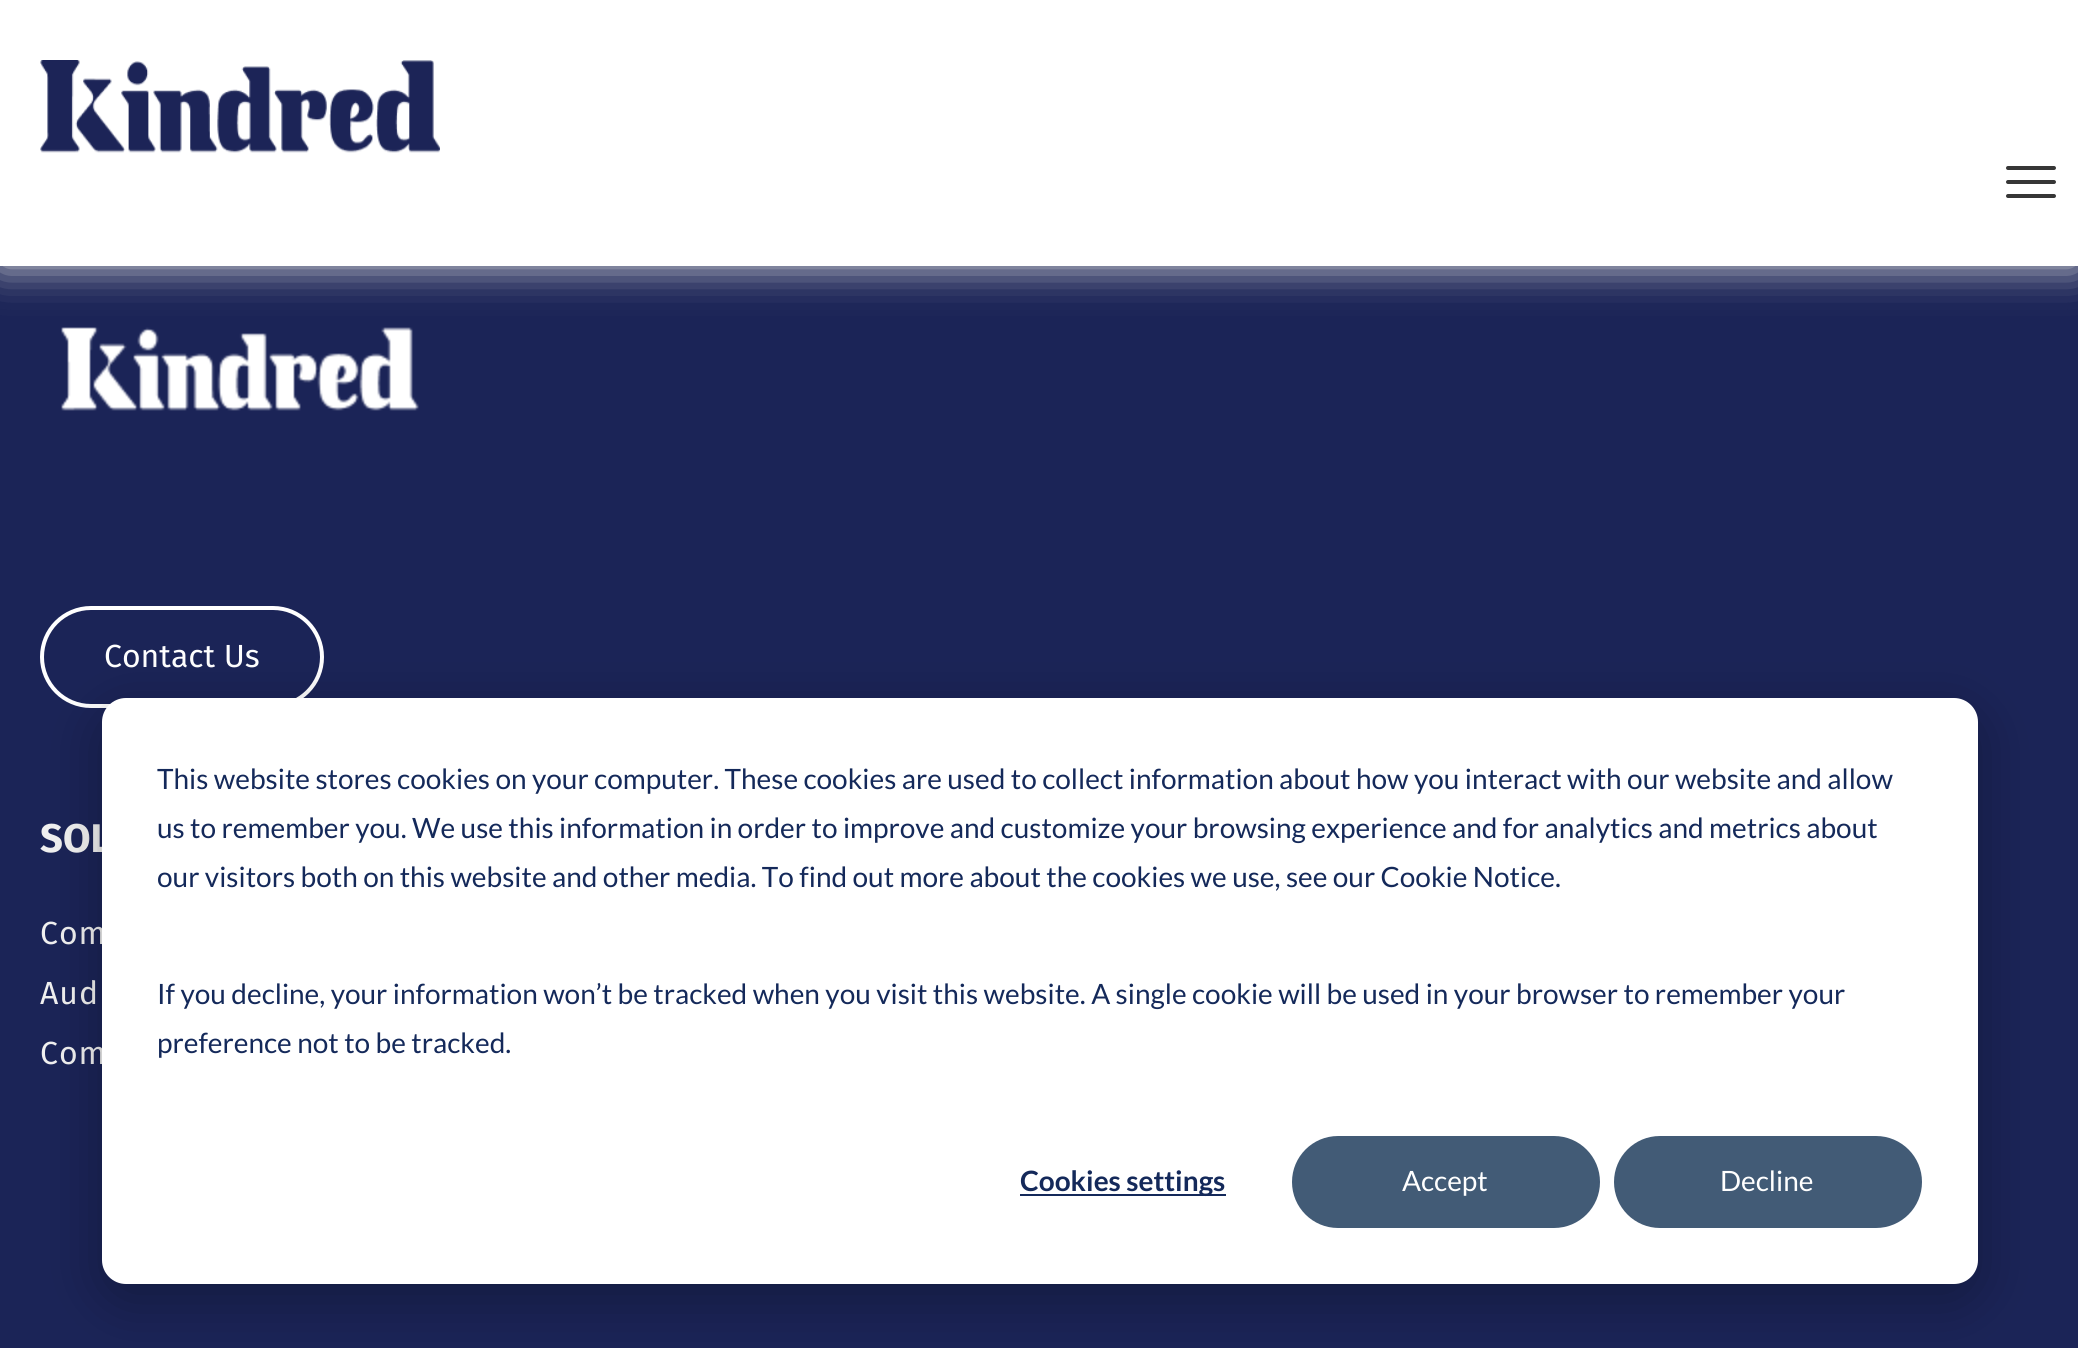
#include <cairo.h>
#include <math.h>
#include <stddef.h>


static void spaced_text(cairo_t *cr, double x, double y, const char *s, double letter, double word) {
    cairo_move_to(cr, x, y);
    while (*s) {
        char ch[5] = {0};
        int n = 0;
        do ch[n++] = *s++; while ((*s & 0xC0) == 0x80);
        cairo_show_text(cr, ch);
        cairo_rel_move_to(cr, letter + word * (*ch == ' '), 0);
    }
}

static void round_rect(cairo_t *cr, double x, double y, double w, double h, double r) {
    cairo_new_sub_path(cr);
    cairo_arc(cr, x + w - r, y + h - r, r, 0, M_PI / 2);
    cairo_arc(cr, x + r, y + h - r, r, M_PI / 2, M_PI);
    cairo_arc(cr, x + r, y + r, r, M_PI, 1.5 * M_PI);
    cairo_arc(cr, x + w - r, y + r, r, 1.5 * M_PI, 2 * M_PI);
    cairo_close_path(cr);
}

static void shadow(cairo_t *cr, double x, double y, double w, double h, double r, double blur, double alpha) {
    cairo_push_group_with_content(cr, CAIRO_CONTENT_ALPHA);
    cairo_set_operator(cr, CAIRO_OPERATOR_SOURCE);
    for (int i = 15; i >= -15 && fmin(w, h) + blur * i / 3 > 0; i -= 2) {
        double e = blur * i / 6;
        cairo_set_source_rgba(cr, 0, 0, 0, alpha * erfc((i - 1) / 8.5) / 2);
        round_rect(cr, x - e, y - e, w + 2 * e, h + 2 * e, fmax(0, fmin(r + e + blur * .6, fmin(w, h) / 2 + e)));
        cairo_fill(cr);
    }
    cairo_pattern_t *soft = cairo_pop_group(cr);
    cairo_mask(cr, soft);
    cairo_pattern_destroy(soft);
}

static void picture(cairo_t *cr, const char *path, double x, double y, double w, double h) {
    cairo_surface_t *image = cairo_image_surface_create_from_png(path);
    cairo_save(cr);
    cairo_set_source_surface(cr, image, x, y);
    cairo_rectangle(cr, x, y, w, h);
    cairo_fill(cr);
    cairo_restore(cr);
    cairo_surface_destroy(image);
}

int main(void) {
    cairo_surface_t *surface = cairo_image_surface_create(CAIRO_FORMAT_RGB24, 2078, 1348);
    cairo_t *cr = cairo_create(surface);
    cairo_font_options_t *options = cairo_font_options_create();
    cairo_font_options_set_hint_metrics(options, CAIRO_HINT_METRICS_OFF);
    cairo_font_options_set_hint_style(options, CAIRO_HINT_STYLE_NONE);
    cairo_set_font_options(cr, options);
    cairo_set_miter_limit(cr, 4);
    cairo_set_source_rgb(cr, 0.106, 0.141, 0.341);
    cairo_paint(cr);
    cairo_set_source_rgb(cr, 0.89, 0.89, 0.89);
    shadow(cr, 0, 0, 2078, 266, 0, 20, 1);
    cairo_set_source_rgb(cr, 1, 1, 1);
    cairo_rectangle(cr, 0, 0, 2078, 266);
    cairo_fill(cr);
    picture(cr, "img1.png", 40, 60, 400, 93);
    cairo_set_source_rgb(cr, 0.212, 0.212, 0.212);
    round_rect(cr, 2006, 180, 50, 4, 2);
    cairo_fill(cr);
    round_rect(cr, 2006, 166, 50, 4, 2);
    cairo_fill(cr);
    round_rect(cr, 2006, 194, 50, 4, 2);
    cairo_fill(cr);
    picture(cr, "img2.png", 61, 327, 358, 84);
    round_rect(cr, 42, 608, 280, 98, 49);
    cairo_set_source_rgb(cr, 1, 1, 1);
    cairo_set_line_width(cr, 4);
    cairo_stroke(cr);
    cairo_select_font_face(cr, "Fira Sans", CAIRO_FONT_SLANT_NORMAL, CAIRO_FONT_WEIGHT_NORMAL);
    cairo_set_font_size(cr, 32);
    cairo_move_to(cr, 104, 667);
    cairo_show_text(cr, "Contact Us");
    cairo_select_font_face(cr, "Fira Sans", CAIRO_FONT_SLANT_NORMAL, CAIRO_FONT_WEIGHT_BOLD);
    cairo_set_font_size(cr, 40);
    cairo_set_source_rgb(cr, 0.945, 0.945, 0.945);
    cairo_move_to(cr, 40, 852);
    cairo_show_text(cr, "SOL");
    cairo_select_font_face(cr, "Fira Sans", CAIRO_FONT_SLANT_NORMAL, CAIRO_FONT_WEIGHT_NORMAL);
    cairo_set_font_size(cr, 32);
    spaced_text(cr, 40, 944, "Com", 1, 0);
    spaced_text(cr, 40, 1004, "Aud", 1, 0);
    spaced_text(cr, 40, 1064, "Com", 1, 0);
    cairo_set_source_rgb(cr, 0, 0, 0);
    shadow(cr, 102, 714, 1876, 586, 24, 28, 0.28);
    cairo_set_source_rgb(cr, 1, 1, 1);
    round_rect(cr, 102, 698, 1876, 586, 24);
    cairo_fill(cr);
    cairo_select_font_face(cr, "Lato", CAIRO_FONT_SLANT_NORMAL, CAIRO_FONT_WEIGHT_NORMAL);
    cairo_set_font_size(cr, 28);
    cairo_set_source_rgb(cr, 0.082, 0.161, 0.353);
    cairo_move_to(cr, 157, 789);
    cairo_show_text(cr, "This website stores cookies on your computer. These cookies are used to collect information about how you interact with our website and allow");
    cairo_move_to(cr, 157, 838);
    cairo_show_text(cr, "us to remember you. We use this information in order to improve and customize your browsing experience and for analytics and metrics about");
    cairo_move_to(cr, 157, 887);
    cairo_show_text(cr, "our visitors both on this website and other media. To find out more about the cookies we use, see our Cookie Notice.");
    cairo_move_to(cr, 157, 1004);
    cairo_show_text(cr, "If you decline, your information won’t be tracked when you visit this website. A single cookie will be used in your browser to remember your");
    cairo_move_to(cr, 157, 1053);
    cairo_show_text(cr, "preference not to be tracked.");
    cairo_rectangle(cr, 1020, 1194, 206, 2);
    cairo_fill(cr);
    cairo_select_font_face(cr, "Lato", CAIRO_FONT_SLANT_NORMAL, CAIRO_FONT_WEIGHT_BOLD);
    cairo_move_to(cr, 1020, 1191);
    cairo_show_text(cr, "Cookies settings");
    cairo_set_source_rgb(cr, 0.259, 0.357, 0.463);
    round_rect(cr, 1293, 1137, 306, 90, 45);
    cairo_fill_preserve(cr);
    cairo_set_line_width(cr, 2);
    cairo_stroke(cr);
    cairo_select_font_face(cr, "Lato", CAIRO_FONT_SLANT_NORMAL, CAIRO_FONT_WEIGHT_NORMAL);
    cairo_set_source_rgb(cr, 1, 1, 1);
    cairo_move_to(cr, 1402, 1191);
    cairo_show_text(cr, "Accept");
    cairo_set_source_rgb(cr, 0.259, 0.357, 0.463);
    round_rect(cr, 1615, 1137, 306, 90, 45);
    cairo_fill_preserve(cr);
    cairo_stroke(cr);
    cairo_set_source_rgb(cr, 1, 1, 1);
    cairo_move_to(cr, 1720, 1191);
    cairo_show_text(cr, "Decline");
    cairo_surface_write_to_png(surface, "page.png");
    cairo_font_options_destroy(options);
    cairo_destroy(cr);
    cairo_surface_destroy(surface);
    return 0;
}
